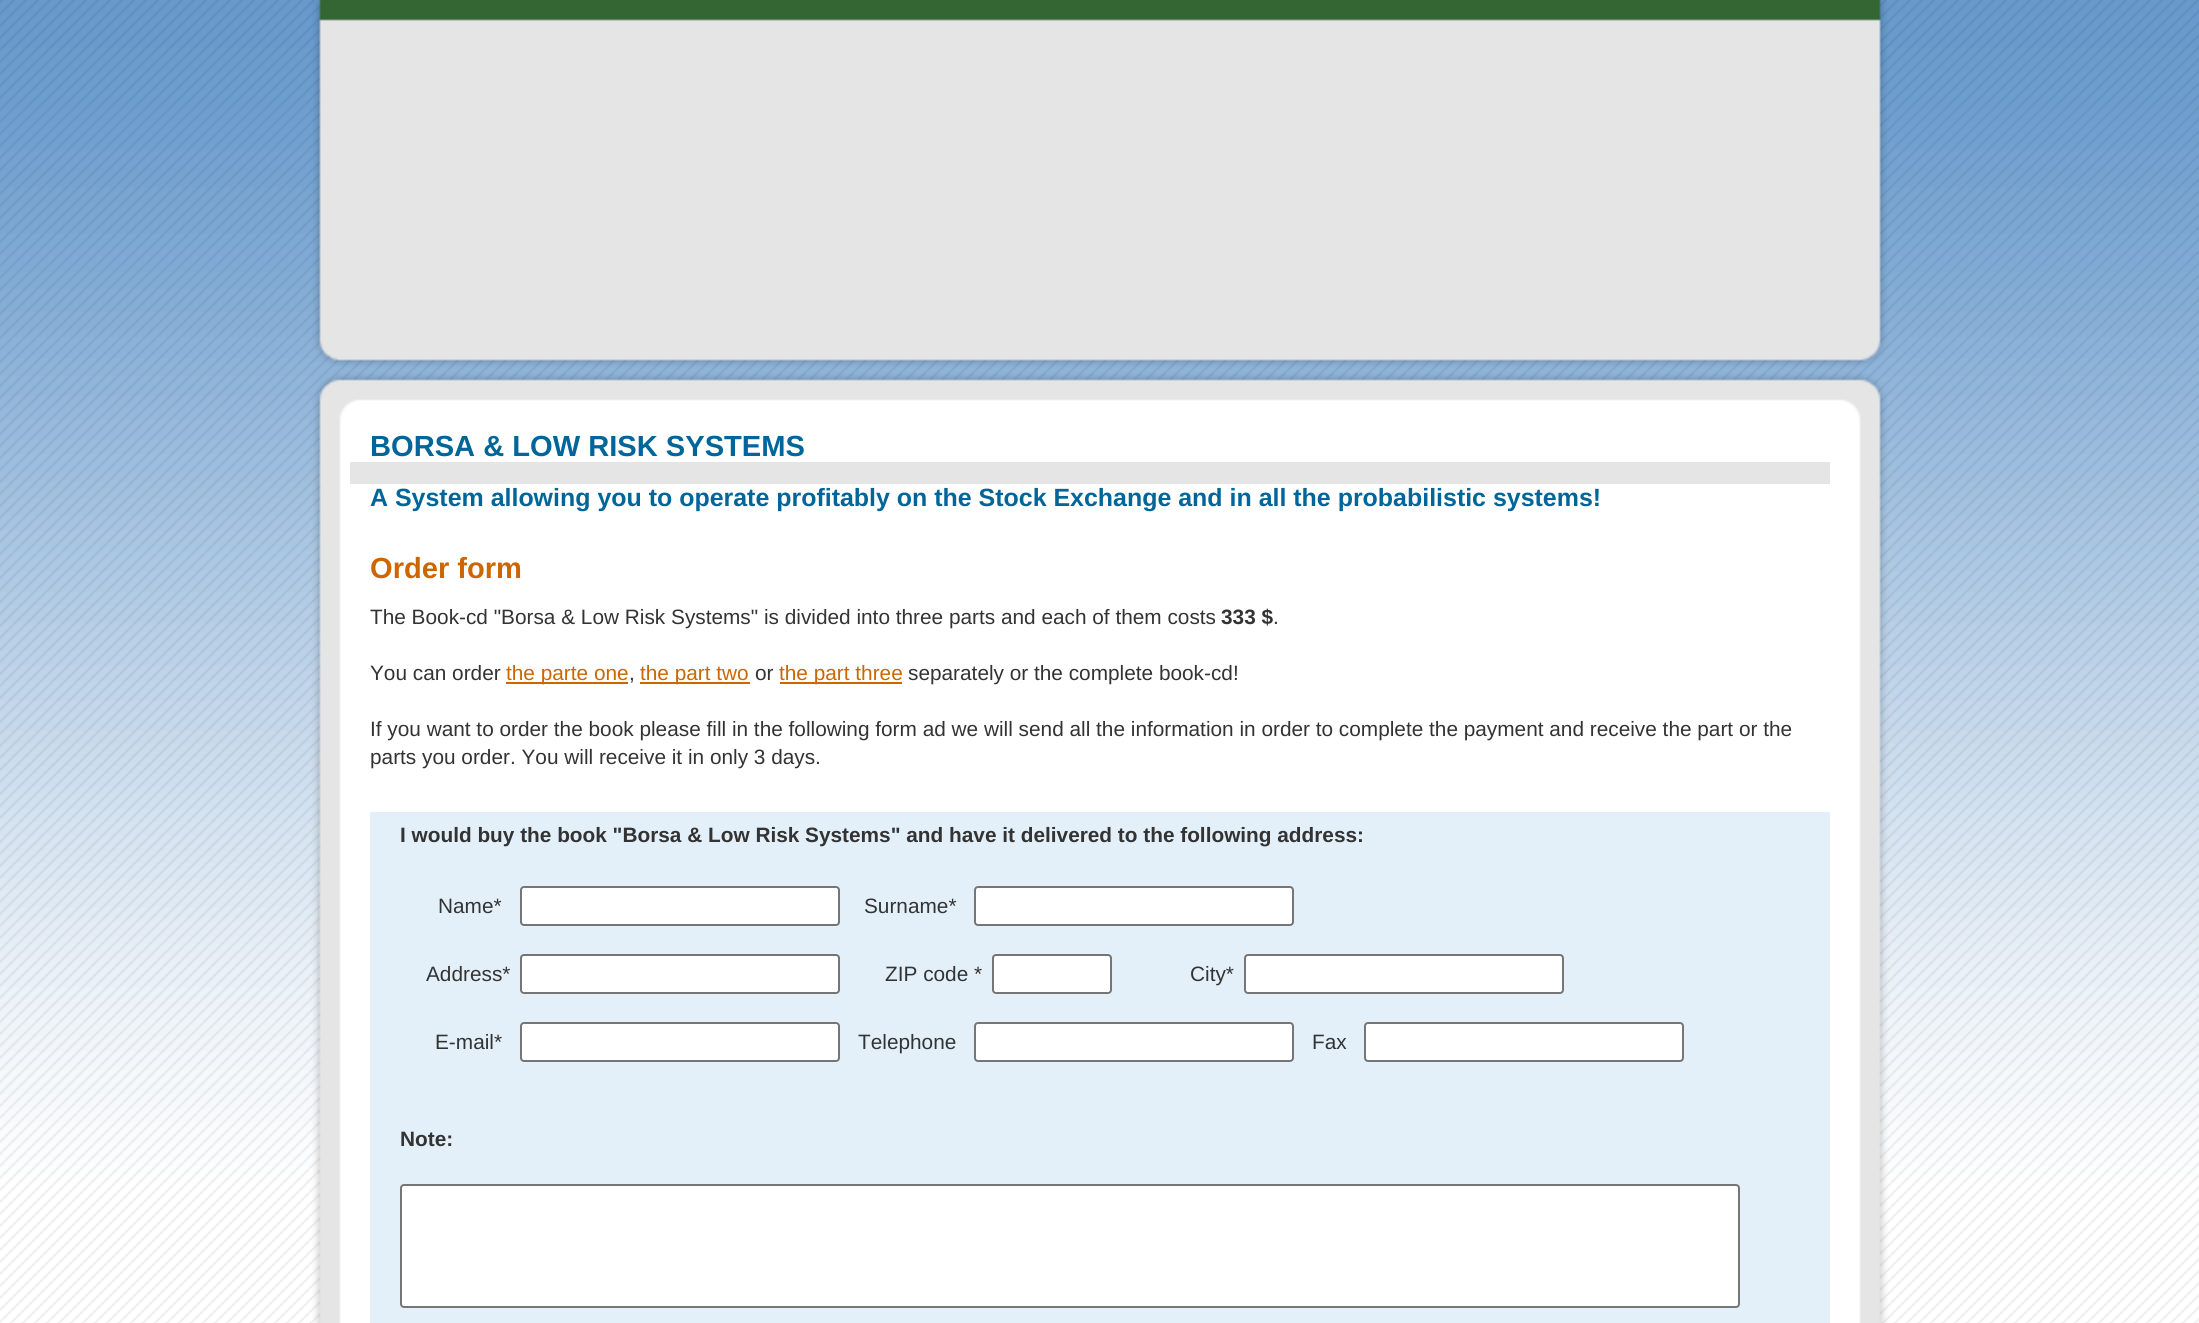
#include <cairo.h>
#include <math.h>
#include <stddef.h>


static void round_rect(cairo_t *cr, double x, double y, double w, double h, double r) {
    cairo_new_sub_path(cr);
    cairo_arc(cr, x + w - r, y + h - r, r, 0, M_PI / 2);
    cairo_arc(cr, x + r, y + h - r, r, M_PI / 2, M_PI);
    cairo_arc(cr, x + r, y + r, r, M_PI, 1.5 * M_PI);
    cairo_arc(cr, x + w - r, y + r, r, 1.5 * M_PI, 2 * M_PI);
    cairo_close_path(cr);
}

static void picture(cairo_t *cr, const char *path, double x, double y, double w, double h) {
    cairo_surface_t *image = cairo_image_surface_create_from_png(path);
    cairo_save(cr);
    cairo_set_source_surface(cr, image, x, y);
    cairo_rectangle(cr, x, y, w, h);
    cairo_fill(cr);
    cairo_restore(cr);
    cairo_surface_destroy(image);
}

int main(void) {
    cairo_surface_t *surface = cairo_image_surface_create(CAIRO_FORMAT_RGB24, 2199, 1323);
    cairo_t *cr = cairo_create(surface);
    cairo_font_options_t *options = cairo_font_options_create();
    cairo_font_options_set_hint_metrics(options, CAIRO_HINT_METRICS_OFF);
    cairo_font_options_set_hint_style(options, CAIRO_HINT_STYLE_NONE);
    cairo_set_font_options(cr, options);
    cairo_set_miter_limit(cr, 4);
    cairo_set_source_rgb(cr, 1, 1, 1);
    cairo_paint(cr);
    picture(cr, "img1.png", 0, 0, 2199, 1323);
    picture(cr, "img2.png", 310, 0, 1580, 370);
    picture(cr, "img3.png", 310, 370, 1580, 953);
    cairo_select_font_face(cr, "Liberation Sans", CAIRO_FONT_SLANT_NORMAL, CAIRO_FONT_WEIGHT_BOLD);
    cairo_set_font_size(cr, 29.1);
    cairo_set_source_rgb(cr, 0, 0.4, 0.6);
    cairo_move_to(cr, 370, 456);
    cairo_show_text(cr, "BORSA & LOW RISK SYSTEMS");
    cairo_set_source_rgb(cr, 0.898, 0.898, 0.898);
    cairo_rectangle(cr, 352, 464, 1476, 20);
    cairo_fill(cr);
    cairo_rectangle(cr, 350, 462, 1480, 2);
    cairo_fill(cr);
    cairo_rectangle(cr, 1828, 462, 2, 22);
    cairo_fill(cr);
    cairo_rectangle(cr, 350, 462, 2, 22);
    cairo_fill(cr);
    cairo_set_font_size(cr, 24.95);
    cairo_set_source_rgb(cr, 0, 0.4, 0.6);
    cairo_move_to(cr, 370, 506);
    cairo_show_text(cr, "A System allowing you to operate profitably on the Stock Exchange and in all the probabilistic systems!");
    cairo_set_font_size(cr, 29.1);
    cairo_set_source_rgb(cr, 0.8, 0.4, 0);
    cairo_move_to(cr, 370, 578);
    cairo_show_text(cr, "Order form");
    cairo_select_font_face(cr, "Liberation Sans", CAIRO_FONT_SLANT_NORMAL, CAIRO_FONT_WEIGHT_NORMAL);
    cairo_set_font_size(cr, 20.8);
    cairo_set_source_rgb(cr, 0.2, 0.2, 0.2);
    cairo_move_to(cr, 370, 624);
    cairo_show_text(cr, "The Book-cd \"Borsa & Low Risk Systems\" is divided into three parts and each of them costs");
    cairo_select_font_face(cr, "Liberation Sans", CAIRO_FONT_SLANT_NORMAL, CAIRO_FONT_WEIGHT_BOLD);
    cairo_move_to(cr, 1221, 624);
    cairo_show_text(cr, "333 $");
    cairo_select_font_face(cr, "Liberation Sans", CAIRO_FONT_SLANT_NORMAL, CAIRO_FONT_WEIGHT_NORMAL);
    cairo_move_to(cr, 1273, 624);
    cairo_show_text(cr, ".");
    cairo_move_to(cr, 370, 680);
    cairo_show_text(cr, "You can order");
    cairo_set_source_rgb(cr, 0.8, 0.4, 0);
    cairo_rectangle(cr, 506, 682, 122, 2);
    cairo_fill(cr);
    cairo_move_to(cr, 506, 680);
    cairo_show_text(cr, "the parte one");
    cairo_set_source_rgb(cr, 0.2, 0.2, 0.2);
    cairo_move_to(cr, 629, 680);
    cairo_show_text(cr, ",");
    cairo_set_source_rgb(cr, 0.8, 0.4, 0);
    cairo_rectangle(cr, 640, 682, 110, 2);
    cairo_fill(cr);
    cairo_move_to(cr, 640, 680);
    cairo_show_text(cr, "the part two");
    cairo_set_source_rgb(cr, 0.2, 0.2, 0.2);
    cairo_move_to(cr, 755, 680);
    cairo_show_text(cr, "or");
    cairo_set_source_rgb(cr, 0.8, 0.4, 0);
    cairo_rectangle(cr, 780, 682, 122, 2);
    cairo_fill(cr);
    cairo_move_to(cr, 779, 680);
    cairo_show_text(cr, "the part three");
    cairo_set_source_rgb(cr, 0.2, 0.2, 0.2);
    cairo_move_to(cr, 908, 680);
    cairo_show_text(cr, "separately or the complete book-cd!");
    cairo_move_to(cr, 370, 736);
    cairo_show_text(cr, "If you want to order the book please fill in the following form ad we will send all the information in order to complete the payment and receive the part or the");
    cairo_move_to(cr, 370, 764);
    cairo_show_text(cr, "parts you order. You will receive it in only 3 days.");
    cairo_set_source_rgb(cr, 0.894, 0.941, 0.976);
    cairo_rectangle(cr, 370, 812, 1460, 511);
    cairo_fill(cr);
    cairo_select_font_face(cr, "Liberation Sans", CAIRO_FONT_SLANT_NORMAL, CAIRO_FONT_WEIGHT_BOLD);
    cairo_set_source_rgb(cr, 0.2, 0.2, 0.2);
    cairo_move_to(cr, 400, 842);
    cairo_show_text(cr, "I would buy the book \"Borsa & Low Risk Systems\" and have it delivered to the following address:");
    cairo_select_font_face(cr, "Liberation Sans", CAIRO_FONT_SLANT_NORMAL, CAIRO_FONT_WEIGHT_NORMAL);
    cairo_move_to(cr, 438, 913);
    cairo_show_text(cr, "Name*");
    cairo_set_source_rgb(cr, 1, 1, 1);
    round_rect(cr, 521, 887, 318, 38, 3);
    cairo_fill_preserve(cr);
    cairo_set_source_rgb(cr, 0.463, 0.463, 0.463);
    cairo_stroke(cr);
    cairo_set_source_rgb(cr, 0.2, 0.2, 0.2);
    cairo_move_to(cr, 864, 913);
    cairo_show_text(cr, "Surname*");
    cairo_set_source_rgb(cr, 1, 1, 1);
    round_rect(cr, 975, 887, 318, 38, 3);
    cairo_fill_preserve(cr);
    cairo_set_source_rgb(cr, 0.463, 0.463, 0.463);
    cairo_stroke(cr);
    cairo_set_source_rgb(cr, 0.2, 0.2, 0.2);
    cairo_move_to(cr, 426, 981);
    cairo_show_text(cr, "Address*");
    cairo_set_source_rgb(cr, 1, 1, 1);
    round_rect(cr, 521, 955, 318, 38, 3);
    cairo_fill_preserve(cr);
    cairo_set_source_rgb(cr, 0.463, 0.463, 0.463);
    cairo_stroke(cr);
    cairo_set_source_rgb(cr, 0.2, 0.2, 0.2);
    cairo_move_to(cr, 885, 981);
    cairo_show_text(cr, "ZIP code *");
    cairo_set_source_rgb(cr, 1, 1, 1);
    round_rect(cr, 993, 955, 118, 38, 3);
    cairo_fill_preserve(cr);
    cairo_set_source_rgb(cr, 0.463, 0.463, 0.463);
    cairo_stroke(cr);
    cairo_set_source_rgb(cr, 0.2, 0.2, 0.2);
    cairo_move_to(cr, 1190, 981);
    cairo_show_text(cr, "City*");
    cairo_set_source_rgb(cr, 1, 1, 1);
    round_rect(cr, 1245, 955, 318, 38, 3);
    cairo_fill_preserve(cr);
    cairo_set_source_rgb(cr, 0.463, 0.463, 0.463);
    cairo_stroke(cr);
    cairo_set_source_rgb(cr, 0.2, 0.2, 0.2);
    cairo_move_to(cr, 435, 1049);
    cairo_show_text(cr, "E-mail*");
    cairo_set_source_rgb(cr, 1, 1, 1);
    round_rect(cr, 521, 1023, 318, 38, 3);
    cairo_fill_preserve(cr);
    cairo_set_source_rgb(cr, 0.463, 0.463, 0.463);
    cairo_stroke(cr);
    cairo_set_source_rgb(cr, 0.2, 0.2, 0.2);
    cairo_move_to(cr, 858, 1049);
    cairo_show_text(cr, "Telephone");
    cairo_set_source_rgb(cr, 1, 1, 1);
    round_rect(cr, 975, 1023, 318, 38, 3);
    cairo_fill_preserve(cr);
    cairo_set_source_rgb(cr, 0.463, 0.463, 0.463);
    cairo_stroke(cr);
    cairo_set_source_rgb(cr, 0.2, 0.2, 0.2);
    cairo_move_to(cr, 1312, 1049);
    cairo_show_text(cr, "Fax");
    cairo_set_source_rgb(cr, 1, 1, 1);
    round_rect(cr, 1365, 1023, 318, 38, 3);
    cairo_fill_preserve(cr);
    cairo_set_source_rgb(cr, 0.463, 0.463, 0.463);
    cairo_stroke(cr);
    cairo_select_font_face(cr, "Liberation Sans", CAIRO_FONT_SLANT_NORMAL, CAIRO_FONT_WEIGHT_BOLD);
    cairo_set_source_rgb(cr, 0.2, 0.2, 0.2);
    cairo_move_to(cr, 400, 1146);
    cairo_show_text(cr, "Note:");
    cairo_set_source_rgb(cr, 1, 1, 1);
    round_rect(cr, 401, 1185, 1338, 122, 3);
    cairo_fill_preserve(cr);
    cairo_set_source_rgb(cr, 0.463, 0.463, 0.463);
    cairo_stroke(cr);
    cairo_surface_write_to_png(surface, "page.png");
    cairo_font_options_destroy(options);
    cairo_destroy(cr);
    cairo_surface_destroy(surface);
    return 0;
}
